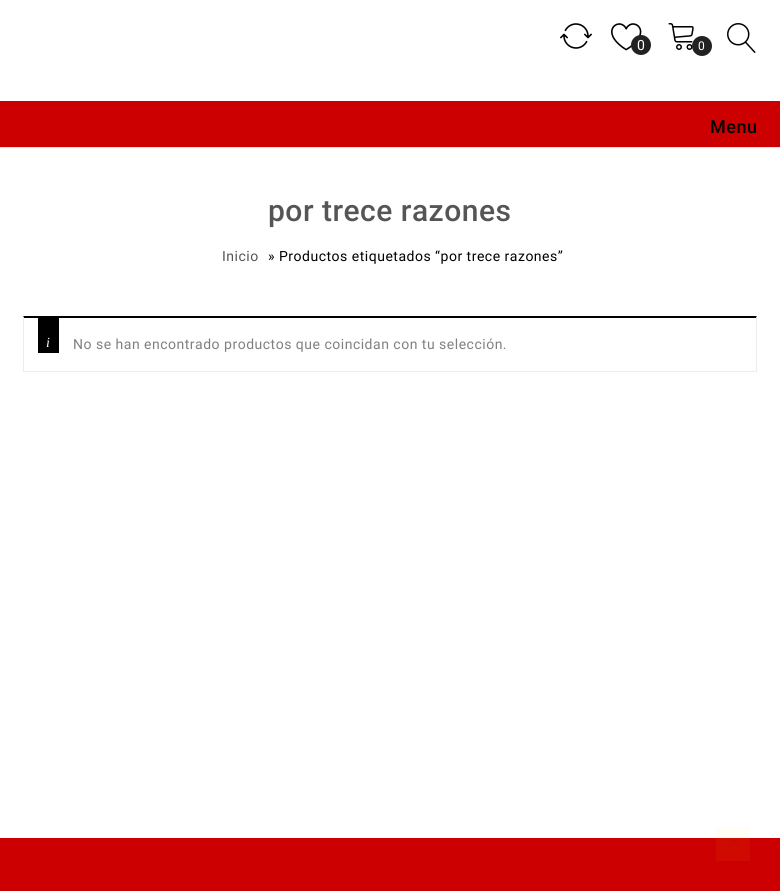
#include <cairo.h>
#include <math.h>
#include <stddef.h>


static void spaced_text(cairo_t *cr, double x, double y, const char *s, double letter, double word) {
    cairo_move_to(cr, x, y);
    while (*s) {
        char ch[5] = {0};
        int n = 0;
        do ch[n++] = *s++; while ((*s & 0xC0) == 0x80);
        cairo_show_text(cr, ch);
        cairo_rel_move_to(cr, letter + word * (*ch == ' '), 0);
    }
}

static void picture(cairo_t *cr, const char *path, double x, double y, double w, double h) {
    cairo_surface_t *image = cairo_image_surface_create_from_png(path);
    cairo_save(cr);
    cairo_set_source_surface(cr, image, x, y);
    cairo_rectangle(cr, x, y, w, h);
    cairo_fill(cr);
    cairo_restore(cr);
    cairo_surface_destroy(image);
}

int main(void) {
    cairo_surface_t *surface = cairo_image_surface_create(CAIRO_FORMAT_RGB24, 780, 891);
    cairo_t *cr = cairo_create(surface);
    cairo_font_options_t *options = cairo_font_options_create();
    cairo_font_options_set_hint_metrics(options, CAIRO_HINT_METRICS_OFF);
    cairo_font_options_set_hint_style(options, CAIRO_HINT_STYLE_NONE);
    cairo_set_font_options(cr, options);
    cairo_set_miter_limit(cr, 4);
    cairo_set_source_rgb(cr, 1, 1, 1);
    cairo_paint(cr);
    picture(cr, "img1.png", 560, 23, 32, 26);
    picture(cr, "img2.png", 611, 23, 31, 28);
    cairo_set_source_rgb(cr, 0.133, 0.133, 0.133);
    cairo_arc(cr, 641, 45, 10, 0, 2 * M_PI);
    cairo_fill(cr);
    cairo_select_font_face(cr, "Roboto", CAIRO_FONT_SLANT_NORMAL, CAIRO_FONT_WEIGHT_NORMAL);
    cairo_set_font_size(cr, 14);
    cairo_set_source_rgb(cr, 1, 1, 1);
    spaced_text(cr, 637, 50, "0", 0.5, 0);
    picture(cr, "img3.png", 668, 23, 26, 27);
    cairo_set_source_rgb(cr, 0.133, 0.133, 0.133);
    cairo_arc(cr, 702, 46, 10, 0, 2 * M_PI);
    cairo_fill(cr);
    cairo_set_font_size(cr, 12);
    cairo_set_source_rgb(cr, 1, 1, 1);
    spaced_text(cr, 698, 50, "0", 0.5, 0);
    picture(cr, "img4.png", 727, 23, 29, 30);
    cairo_set_source_rgb(cr, 0.8, 0, 0);
    cairo_rectangle(cr, 0, 101, 780, 46);
    cairo_fill(cr);
    cairo_set_source_rgb(cr, 0.902, 0.902, 0.902);
    cairo_rectangle(cr, 0, 147, 780, 1);
    cairo_fill(cr);
    cairo_select_font_face(cr, "Roboto Medium", CAIRO_FONT_SLANT_NORMAL, CAIRO_FONT_WEIGHT_NORMAL);
    cairo_set_font_size(cr, 18);
    cairo_set_source_rgb(cr, 0, 0, 0);
    spaced_text(cr, 710, 133, "Menu", 0.5, 0);
    cairo_set_font_size(cr, 30);
    cairo_set_source_rgb(cr, 0.333, 0.333, 0.333);
    spaced_text(cr, 268, 221, "por trece razones", 0.5, 0);
    cairo_select_font_face(cr, "Roboto", CAIRO_FONT_SLANT_NORMAL, CAIRO_FONT_WEIGHT_NORMAL);
    cairo_set_font_size(cr, 14);
    spaced_text(cr, 222, 261, "Inicio", 0.5, 0);
    cairo_set_source_rgb(cr, 0, 0, 0);
    spaced_text(cr, 268, 261, "» Productos etiquetados “por trece razones”", 0.5, 0);
    cairo_new_path(cr);
    cairo_move_to(cr, 23, 316);
    cairo_line_to(cr, 757, 316);
    cairo_line_to(cr, 756, 318);
    cairo_line_to(cr, 24, 318);
    cairo_close_path(cr);
    cairo_fill(cr);
    cairo_set_source_rgb(cr, 0.922, 0.922, 0.922);
    cairo_new_path(cr);
    cairo_move_to(cr, 757, 316);
    cairo_line_to(cr, 757, 372);
    cairo_line_to(cr, 756, 371);
    cairo_line_to(cr, 756, 318);
    cairo_close_path(cr);
    cairo_fill(cr);
    cairo_rectangle(cr, 23, 371, 734, 1);
    cairo_fill(cr);
    cairo_new_path(cr);
    cairo_move_to(cr, 23, 372);
    cairo_line_to(cr, 23, 316);
    cairo_line_to(cr, 24, 318);
    cairo_line_to(cr, 24, 371);
    cairo_close_path(cr);
    cairo_fill(cr);
    cairo_set_source_rgb(cr, 0, 0, 0);
    cairo_rectangle(cr, 38, 318, 21, 35);
    cairo_fill(cr);
    cairo_select_font_face(cr, "Liberation Serif", CAIRO_FONT_SLANT_ITALIC, CAIRO_FONT_WEIGHT_NORMAL);
    cairo_set_source_rgb(cr, 1, 1, 1);
    spaced_text(cr, 46, 347, "i", 0.5, 0);
    cairo_select_font_face(cr, "Roboto", CAIRO_FONT_SLANT_NORMAL, CAIRO_FONT_WEIGHT_NORMAL);
    cairo_set_source_rgb(cr, 0.502, 0.502, 0.502);
    spaced_text(cr, 73, 349, "No se han encontrado productos que coincidan con tu selección.", 0.5, 0);
    cairo_set_source_rgb(cr, 0.8, 0, 0);
    cairo_rectangle(cr, 0, 838, 780, 53);
    cairo_fill(cr);
    cairo_set_source_rgba(cr, 1, 0.824, 0.114, 0.05);
    cairo_rectangle(cr, 716, 827, 34, 34);
    cairo_fill(cr);
    picture(cr, "img5.png", 727, 840, 12, 7);
    cairo_surface_write_to_png(surface, "page.png");
    cairo_font_options_destroy(options);
    cairo_destroy(cr);
    cairo_surface_destroy(surface);
    return 0;
}
